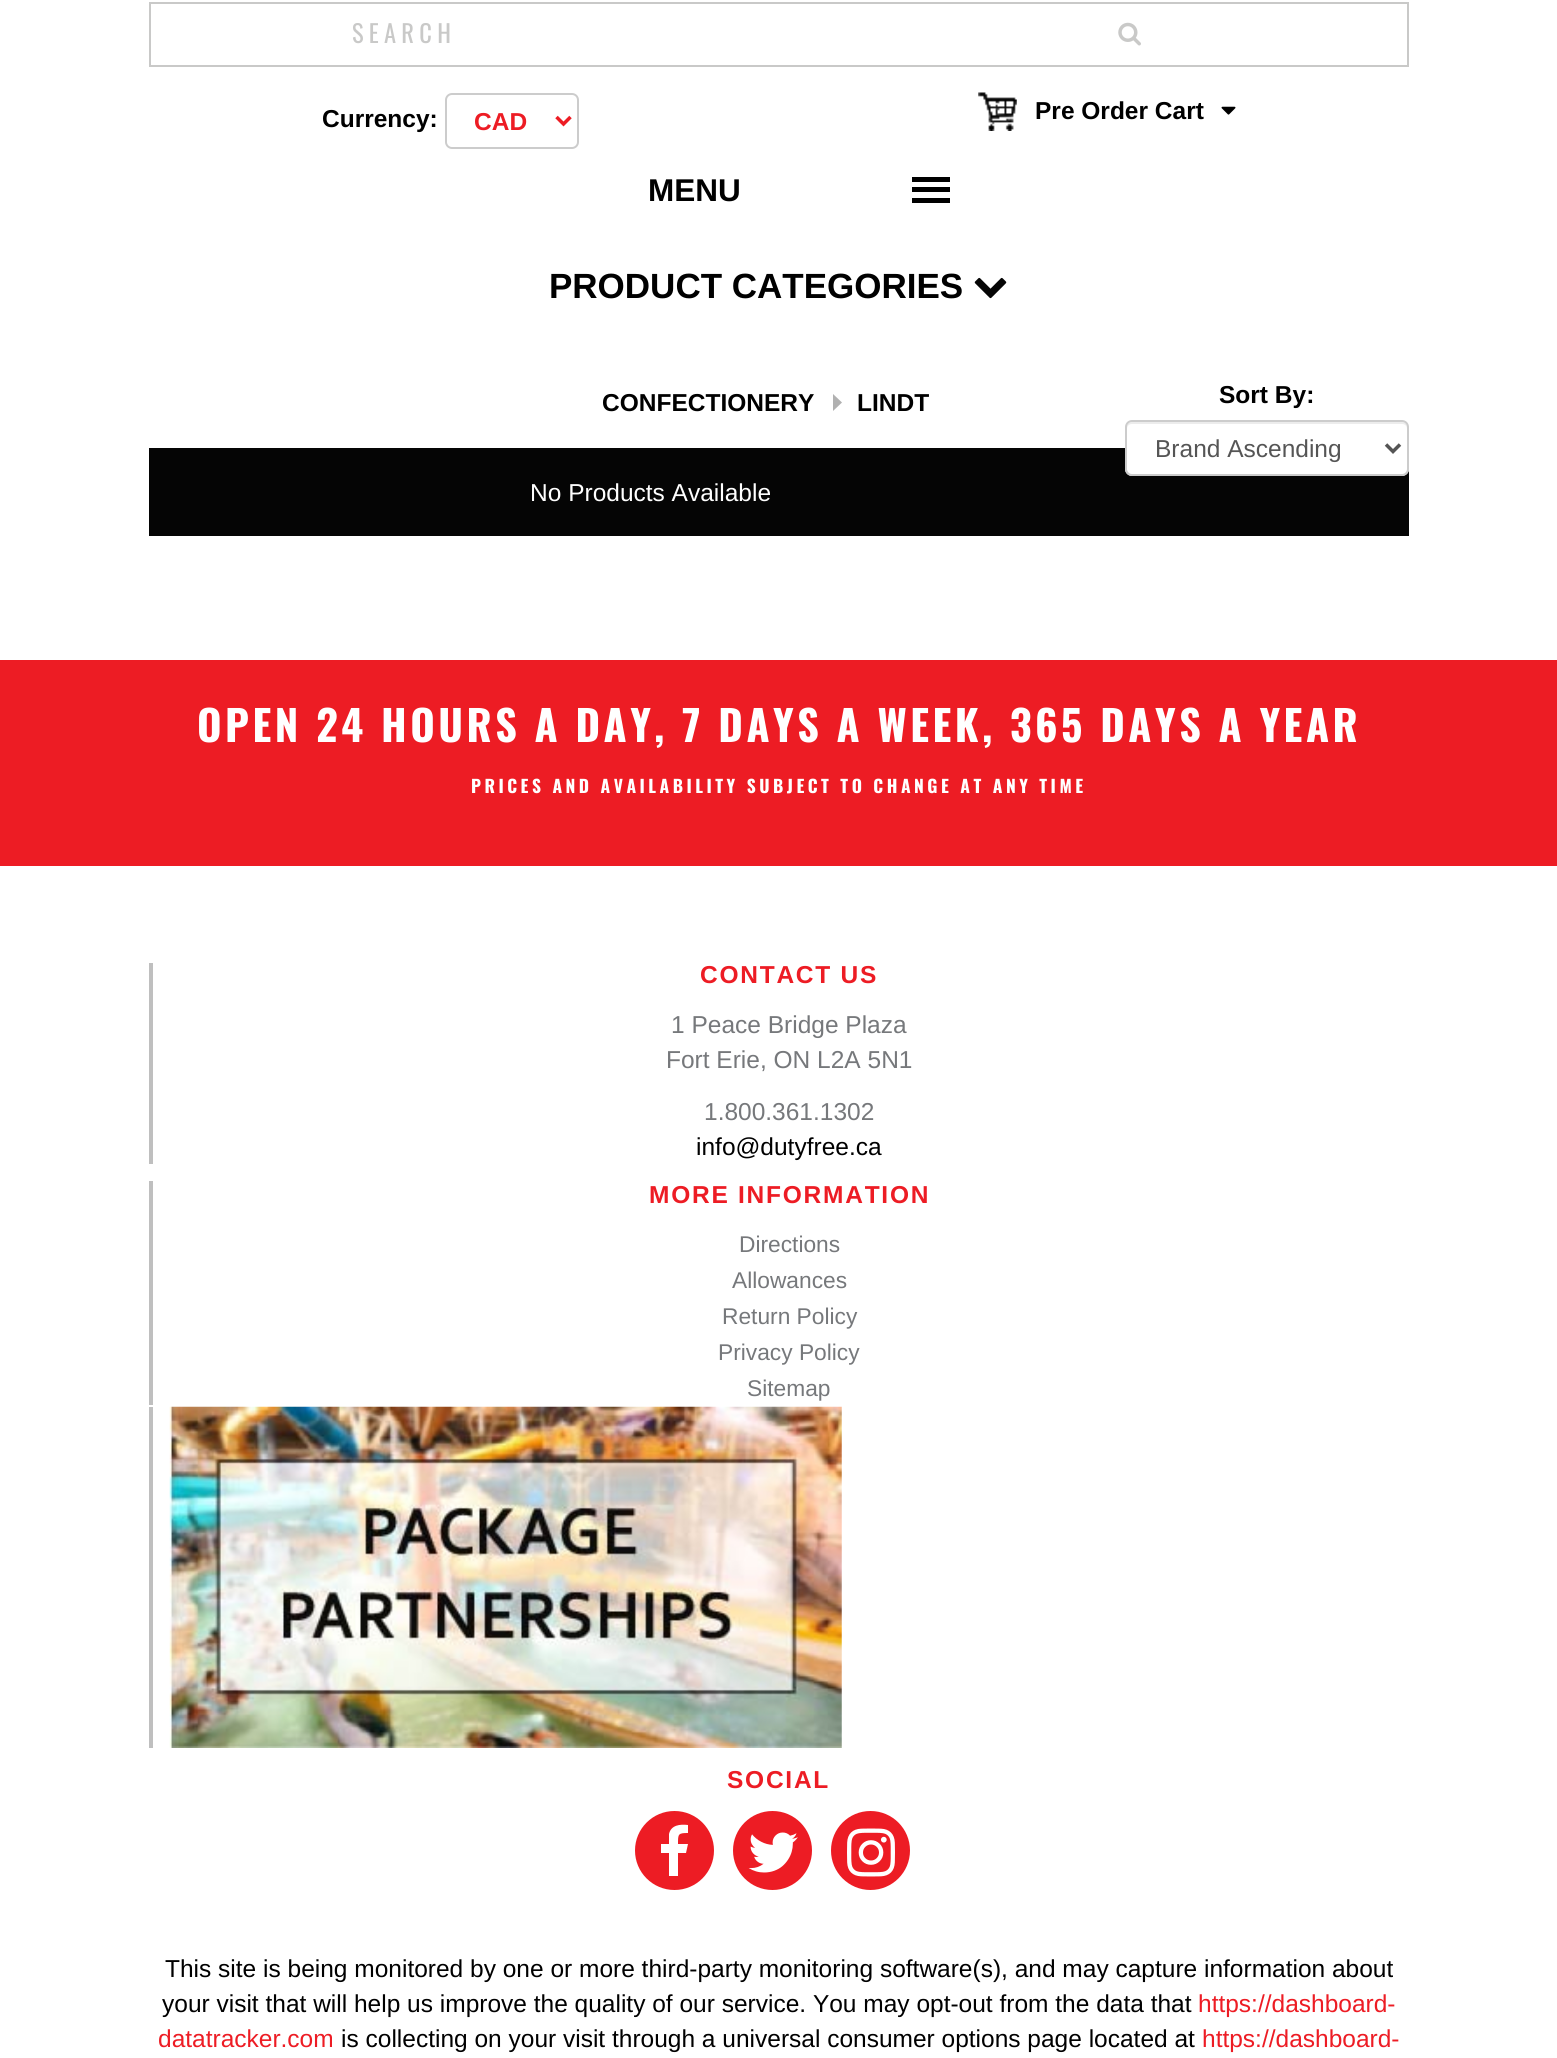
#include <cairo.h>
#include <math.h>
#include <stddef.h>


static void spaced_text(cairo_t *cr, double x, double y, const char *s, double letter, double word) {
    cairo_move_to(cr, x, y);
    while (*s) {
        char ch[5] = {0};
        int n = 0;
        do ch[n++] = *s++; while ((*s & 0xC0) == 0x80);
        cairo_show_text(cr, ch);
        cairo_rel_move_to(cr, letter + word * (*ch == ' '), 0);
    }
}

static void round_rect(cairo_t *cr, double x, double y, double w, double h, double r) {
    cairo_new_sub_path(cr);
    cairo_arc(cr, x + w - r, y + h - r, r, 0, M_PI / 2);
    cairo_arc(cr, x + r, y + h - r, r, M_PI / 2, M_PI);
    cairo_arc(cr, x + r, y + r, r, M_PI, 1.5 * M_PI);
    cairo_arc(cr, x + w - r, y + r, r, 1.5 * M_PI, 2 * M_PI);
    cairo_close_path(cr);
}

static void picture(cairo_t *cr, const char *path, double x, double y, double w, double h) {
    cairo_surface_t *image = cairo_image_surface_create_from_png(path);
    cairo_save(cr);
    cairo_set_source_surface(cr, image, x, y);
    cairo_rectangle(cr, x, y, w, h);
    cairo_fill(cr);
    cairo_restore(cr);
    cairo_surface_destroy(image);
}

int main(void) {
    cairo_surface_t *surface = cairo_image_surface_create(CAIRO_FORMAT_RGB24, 1557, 2058);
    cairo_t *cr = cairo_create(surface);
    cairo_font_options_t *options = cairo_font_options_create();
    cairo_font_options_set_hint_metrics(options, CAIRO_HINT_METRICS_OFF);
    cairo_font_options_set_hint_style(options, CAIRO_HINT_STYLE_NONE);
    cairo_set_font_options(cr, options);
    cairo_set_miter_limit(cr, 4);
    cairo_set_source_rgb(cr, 1, 1, 1);
    cairo_paint(cr);
    cairo_rectangle(cr, 150, 3, 1258, 63);
    cairo_set_source_rgb(cr, 0.788, 0.788, 0.784);
    cairo_stroke(cr);
    cairo_select_font_face(cr, "Oswald", CAIRO_FONT_SLANT_NORMAL, CAIRO_FONT_WEIGHT_NORMAL);
    cairo_set_font_size(cr, 24.5);
    spaced_text(cr, 352, 43, "SEARCH", 5.25, 0);
    picture(cr, "img1.png", 1118, 22, 23, 24);
    cairo_select_font_face(cr, "Liberation Sans", CAIRO_FONT_SLANT_NORMAL, CAIRO_FONT_WEIGHT_BOLD);
    cairo_set_source_rgb(cr, 0, 0, 0);
    cairo_move_to(cr, 322, 127);
    cairo_show_text(cr, "Currency:");
    round_rect(cr, 446, 94, 132, 54, 6);
    cairo_set_source_rgb(cr, 0.8, 0.8, 0.8);
    cairo_stroke(cr);
    cairo_new_path(cr);
    cairo_move_to(cr, 556.5, 117);
    cairo_line_to(cr, 563.5, 124);
    cairo_line_to(cr, 570.5, 117);
    cairo_set_source_rgb(cr, 0.929, 0.11, 0.141);
    cairo_set_line_width(cr, 3.5);
    cairo_stroke(cr);
    cairo_move_to(cr, 474, 130);
    cairo_show_text(cr, "CAD");
    picture(cr, "img2.png", 978, 92, 39, 39);
    cairo_set_source_rgb(cr, 0, 0, 0);
    cairo_move_to(cr, 1035, 119);
    cairo_show_text(cr, "Pre Order Cart");
    picture(cr, "img3.png", 1221, 106, 15, 9);
    cairo_set_font_size(cr, 31.5);
    cairo_move_to(cr, 648, 201);
    cairo_show_text(cr, "MENU");
    cairo_rectangle(cr, 912, 177, 38, 5);
    cairo_fill(cr);
    cairo_rectangle(cr, 912, 187, 38, 5);
    cairo_fill(cr);
    cairo_rectangle(cr, 912, 198, 38, 5);
    cairo_fill(cr);
    cairo_set_font_size(cr, 35);
    cairo_move_to(cr, 549, 298);
    cairo_show_text(cr, "PRODUCT CATEGORIES");
    picture(cr, "img4.png", 974, 277, 33, 22);
    cairo_set_font_size(cr, 24.5);
    cairo_move_to(cr, 1219, 403);
    cairo_show_text(cr, "Sort By:");
    cairo_set_source_rgb(cr, 0.02, 0.02, 0.02);
    cairo_rectangle(cr, 149, 448, 1260, 88);
    cairo_fill(cr);
    cairo_set_source_rgb(cr, 1, 1, 1);
    round_rect(cr, 1125, 420, 284, 56, 7);
    cairo_fill(cr);
    cairo_set_source_rgb(cr, 0.925, 0.925, 0.925);
    cairo_new_path(cr);
    cairo_move_to(cr, 1132, 424);
    cairo_line_to(cr, 1402, 424);
    cairo_curve_to(cr, 1405, 424, 1407, 426, 1407, 429);
    cairo_line_to(cr, 1407, 427);
    cairo_curve_to(cr, 1407, 424, 1405, 422, 1402, 422);
    cairo_line_to(cr, 1132, 422);
    cairo_curve_to(cr, 1129, 422, 1127, 424, 1127, 427);
    cairo_line_to(cr, 1127, 429);
    cairo_curve_to(cr, 1127, 426, 1129, 424, 1132, 424);
    cairo_close_path(cr);
    cairo_fill(cr);
    round_rect(cr, 1126, 421, 282, 54, 6);
    cairo_set_source_rgb(cr, 0.8, 0.8, 0.8);
    cairo_set_line_width(cr, 2);
    cairo_stroke(cr);
    cairo_new_path(cr);
    cairo_move_to(cr, 1386, 444.5);
    cairo_line_to(cr, 1393, 451.5);
    cairo_line_to(cr, 1400, 444.5);
    cairo_set_source_rgb(cr, 0.333, 0.333, 0.333);
    cairo_set_line_width(cr, 3.5);
    cairo_stroke(cr);
    cairo_select_font_face(cr, "Liberation Sans", CAIRO_FONT_SLANT_NORMAL, CAIRO_FONT_WEIGHT_NORMAL);
    cairo_move_to(cr, 1155, 457);
    cairo_show_text(cr, "Brand Ascending");
    cairo_set_source_rgb(cr, 1, 1, 1);
    cairo_move_to(cr, 530, 501);
    cairo_show_text(cr, "No Products Available");
    cairo_select_font_face(cr, "Liberation Sans", CAIRO_FONT_SLANT_NORMAL, CAIRO_FONT_WEIGHT_BOLD);
    cairo_set_source_rgb(cr, 0, 0, 0);
    cairo_move_to(cr, 602, 411);
    cairo_show_text(cr, "CONFECTIONERY");
    cairo_set_source_rgb(cr, 0.694, 0.694, 0.694);
    cairo_new_path(cr);
    cairo_move_to(cr, 833, 411);
    cairo_line_to(cr, 833, 394);
    cairo_line_to(cr, 842, 402.5);
    cairo_close_path(cr);
    cairo_fill(cr);
    cairo_set_source_rgb(cr, 0, 0, 0);
    cairo_move_to(cr, 857, 411);
    cairo_show_text(cr, "LINDT");
    cairo_set_source_rgb(cr, 0.929, 0.11, 0.141);
    cairo_rectangle(cr, 0, 660, 1557, 206);
    cairo_fill(cr);
    cairo_select_font_face(cr, "Oswald", CAIRO_FONT_SLANT_NORMAL, CAIRO_FONT_WEIGHT_BOLD);
    cairo_set_font_size(cr, 42);
    cairo_set_source_rgb(cr, 1, 1, 1);
    spaced_text(cr, 197, 742, "OPEN 24 HOURS A DAY, 7 DAYS A WEEK, 365 DAYS A YEAR", 3.5, 0);
    cairo_set_font_size(cr, 17.5);
    spaced_text(cr, 471, 793, "PRICES AND AVAILABILITY SUBJECT TO CHANGE AT ANY TIME", 3.5, 0);
    cairo_set_source_rgb(cr, 0.749, 0.749, 0.749);
    cairo_rectangle(cr, 149, 963, 4, 201);
    cairo_fill(cr);
    cairo_select_font_face(cr, "Liberation Sans", CAIRO_FONT_SLANT_NORMAL, CAIRO_FONT_WEIGHT_BOLD);
    cairo_set_font_size(cr, 24.5);
    cairo_set_source_rgb(cr, 0.929, 0.11, 0.141);
    spaced_text(cr, 700, 983, "CONTACT US", 1.75, 0);
    cairo_select_font_face(cr, "Liberation Sans", CAIRO_FONT_SLANT_NORMAL, CAIRO_FONT_WEIGHT_NORMAL);
    cairo_set_source_rgb(cr, 0.463, 0.471, 0.482);
    cairo_move_to(cr, 671, 1033);
    cairo_show_text(cr, "1 Peace Bridge Plaza");
    cairo_move_to(cr, 666, 1068);
    cairo_show_text(cr, "Fort Erie, ON L2A 5N1");
    cairo_move_to(cr, 704, 1120);
    cairo_show_text(cr, "1.800.361.1302");
    cairo_set_source_rgb(cr, 0, 0, 0);
    cairo_move_to(cr, 696, 1155);
    cairo_show_text(cr, "info@dutyfree.ca");
    cairo_set_source_rgb(cr, 0.749, 0.749, 0.749);
    cairo_rectangle(cr, 149, 1181, 4, 224);
    cairo_fill(cr);
    cairo_select_font_face(cr, "Liberation Sans", CAIRO_FONT_SLANT_NORMAL, CAIRO_FONT_WEIGHT_BOLD);
    cairo_set_source_rgb(cr, 0.929, 0.11, 0.141);
    spaced_text(cr, 649, 1203, "MORE INFORMATION", 1.75, 0);
    cairo_select_font_face(cr, "Liberation Sans", CAIRO_FONT_SLANT_NORMAL, CAIRO_FONT_WEIGHT_NORMAL);
    cairo_set_font_size(cr, 22.75);
    cairo_set_source_rgb(cr, 0.463, 0.471, 0.482);
    cairo_move_to(cr, 739, 1252);
    cairo_show_text(cr, "Directions");
    cairo_move_to(cr, 732, 1288);
    cairo_show_text(cr, "Allowances");
    cairo_move_to(cr, 722, 1324);
    cairo_show_text(cr, "Return Policy");
    cairo_move_to(cr, 718, 1360);
    cairo_show_text(cr, "Privacy Policy");
    cairo_move_to(cr, 747, 1396);
    cairo_show_text(cr, "Sitemap");
    cairo_set_source_rgb(cr, 0.749, 0.749, 0.749);
    cairo_rectangle(cr, 149, 1407, 4, 341);
    cairo_fill(cr);
    picture(cr, "img5.png", 169, 1406, 673, 342);
    cairo_select_font_face(cr, "Liberation Sans", CAIRO_FONT_SLANT_NORMAL, CAIRO_FONT_WEIGHT_BOLD);
    cairo_set_font_size(cr, 24.5);
    cairo_set_source_rgb(cr, 0.929, 0.11, 0.141);
    spaced_text(cr, 727, 1788, "SOCIAL", 1.75, 0);
    cairo_new_path(cr);
    cairo_arc(cr, 674.5, 1850.5, 39.5, 0, 2 * M_PI);
    cairo_fill(cr);
    cairo_set_source_rgb(cr, 1, 1, 1);
    cairo_new_path(cr);
    cairo_move_to(cr, 688, 1825);
    cairo_line_to(cr, 688, 1833);
    cairo_curve_to(cr, 678, 1833, 678, 1834, 678, 1844);
    cairo_line_to(cr, 688, 1844);
    cairo_line_to(cr, 686, 1853);
    cairo_line_to(cr, 678, 1853);
    cairo_line_to(cr, 678, 1876);
    cairo_line_to(cr, 669, 1876);
    cairo_line_to(cr, 669, 1853);
    cairo_line_to(cr, 661, 1853);
    cairo_line_to(cr, 661, 1844);
    cairo_line_to(cr, 669, 1844);
    cairo_line_to(cr, 669, 1834);
    cairo_curve_to(cr, 671, 1825, 680, 1824, 688, 1825);
    cairo_close_path(cr);
    cairo_fill(cr);
    cairo_set_source_rgb(cr, 0.929, 0.11, 0.141);
    cairo_arc(cr, 772.5, 1850.5, 39.5, 0, 2 * M_PI);
    cairo_fill(cr);
    picture(cr, "img6.png", 748, 1832, 50, 41);
    cairo_arc(cr, 870.5, 1850.5, 39.5, 0, 2 * M_PI);
    cairo_fill(cr);
    picture(cr, "img7.png", 847, 1828, 48, 49);
    cairo_select_font_face(cr, "Liberation Sans", CAIRO_FONT_SLANT_NORMAL, CAIRO_FONT_WEIGHT_NORMAL);
    cairo_set_source_rgb(cr, 0, 0, 0);
    cairo_move_to(cr, 165, 1977);
    cairo_show_text(cr, "This site is being monitored by one or more third-party monitoring software(s), and may capture information about");
    cairo_move_to(cr, 162, 2012);
    cairo_show_text(cr, "your visit that will help us improve the quality of our service. You may opt-out from the data that");
    cairo_set_source_rgb(cr, 0.929, 0.11, 0.141);
    cairo_move_to(cr, 1198, 2012);
    cairo_show_text(cr, "https://dashboard-");
    cairo_move_to(cr, 158, 2047);
    cairo_show_text(cr, "datatracker.com");
    cairo_set_source_rgb(cr, 0, 0, 0);
    cairo_move_to(cr, 341, 2047);
    cairo_show_text(cr, "is collecting on your visit through a universal consumer options page located at");
    cairo_set_source_rgb(cr, 0.929, 0.11, 0.141);
    cairo_move_to(cr, 1202, 2047);
    cairo_show_text(cr, "https://dashboard-");
    cairo_surface_write_to_png(surface, "page.png");
    cairo_font_options_destroy(options);
    cairo_destroy(cr);
    cairo_surface_destroy(surface);
    return 0;
}
